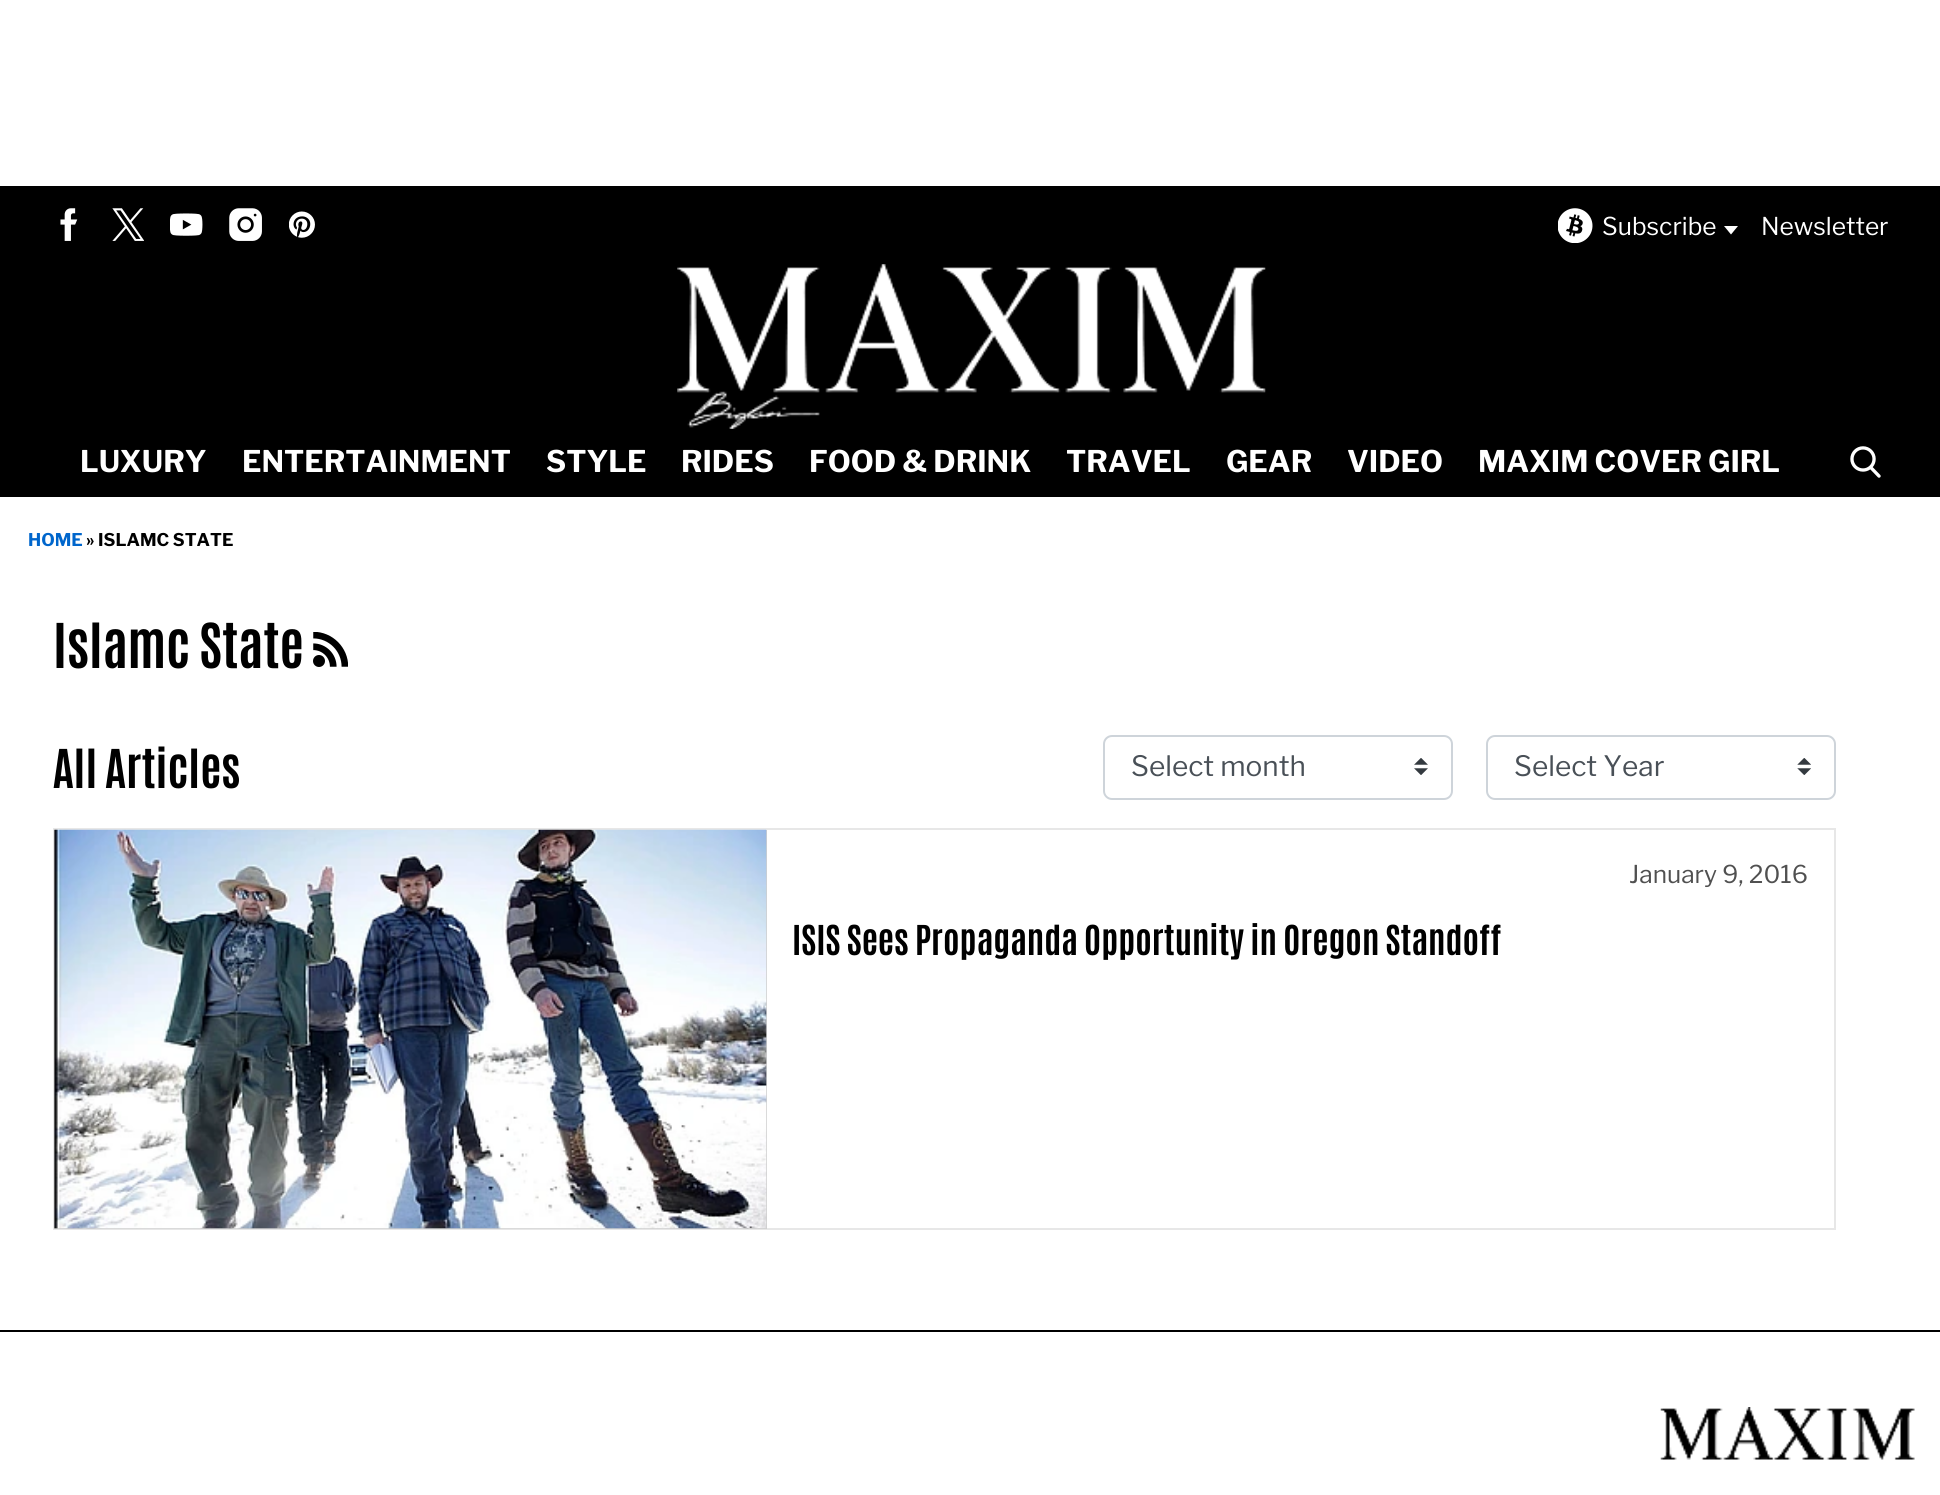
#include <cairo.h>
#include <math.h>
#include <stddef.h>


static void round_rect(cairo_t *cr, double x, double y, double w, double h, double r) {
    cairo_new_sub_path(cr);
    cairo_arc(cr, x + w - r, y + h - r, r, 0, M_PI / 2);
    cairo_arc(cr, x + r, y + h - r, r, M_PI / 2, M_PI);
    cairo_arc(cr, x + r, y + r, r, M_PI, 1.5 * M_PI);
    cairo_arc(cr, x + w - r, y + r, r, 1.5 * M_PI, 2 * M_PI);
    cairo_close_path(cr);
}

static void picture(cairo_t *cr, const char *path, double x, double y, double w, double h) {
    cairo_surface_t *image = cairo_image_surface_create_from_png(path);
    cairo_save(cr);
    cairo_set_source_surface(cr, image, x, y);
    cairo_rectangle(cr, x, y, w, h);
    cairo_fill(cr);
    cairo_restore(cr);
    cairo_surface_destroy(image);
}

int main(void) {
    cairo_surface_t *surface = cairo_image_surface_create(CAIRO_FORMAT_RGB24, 1940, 1495);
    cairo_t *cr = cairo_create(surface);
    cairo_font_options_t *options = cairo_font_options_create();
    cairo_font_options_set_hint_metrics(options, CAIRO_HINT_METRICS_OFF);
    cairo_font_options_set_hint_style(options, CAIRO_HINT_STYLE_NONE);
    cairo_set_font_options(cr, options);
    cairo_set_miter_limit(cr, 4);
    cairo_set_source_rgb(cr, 1, 1, 1);
    cairo_paint(cr);
    cairo_set_source_rgb(cr, 0, 0, 0);
    cairo_rectangle(cr, 0, 186, 1940, 311);
    cairo_fill(cr);
    picture(cr, "img1.png", 60, 208, 18, 33);
    picture(cr, "img2.png", 112, 208, 32, 33);
    picture(cr, "img3.png", 170, 213, 33, 23);
    picture(cr, "img4.png", 229, 208, 33, 33);
    picture(cr, "img5.png", 289, 211, 26, 27);
    picture(cr, "img6.png", 1558, 208, 35, 35);
    cairo_select_font_face(cr, "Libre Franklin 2 Thin", CAIRO_FONT_SLANT_NORMAL, CAIRO_FONT_WEIGHT_NORMAL);
    cairo_set_font_size(cr, 24.5);
    cairo_set_source_rgb(cr, 1, 1, 1);
    cairo_move_to(cr, 1602, 235);
    cairo_show_text(cr, "Subscribe");
    cairo_new_path(cr);
    cairo_move_to(cr, 1724, 226);
    cairo_line_to(cr, 1738, 226);
    cairo_line_to(cr, 1731, 234.5);
    cairo_close_path(cr);
    cairo_fill(cr);
    cairo_move_to(cr, 1761, 235);
    cairo_show_text(cr, "Newsletter");
    picture(cr, "img7.png", 677, 264, 589, 165);
    cairo_select_font_face(cr, "Libre Franklin Thin", CAIRO_FONT_SLANT_NORMAL, CAIRO_FONT_WEIGHT_NORMAL);
    cairo_set_font_size(cr, 29.75);
    cairo_move_to(cr, 80, 472);
    cairo_show_text(cr, "LUXURY");
    cairo_move_to(cr, 242, 472);
    cairo_show_text(cr, "ENTERTAINMENT");
    cairo_move_to(cr, 546, 472);
    cairo_show_text(cr, "STYLE");
    cairo_move_to(cr, 681, 472);
    cairo_show_text(cr, "RIDES");
    cairo_move_to(cr, 809, 472);
    cairo_show_text(cr, "FOOD & DRINK");
    cairo_move_to(cr, 1066, 472);
    cairo_show_text(cr, "TRAVEL");
    cairo_move_to(cr, 1226, 472);
    cairo_show_text(cr, "GEAR");
    cairo_move_to(cr, 1347, 472);
    cairo_show_text(cr, "VIDEO");
    cairo_move_to(cr, 1478, 472);
    cairo_show_text(cr, "MAXIM COVER GIRL");
    picture(cr, "img8.png", 1850, 446, 31, 32);
    cairo_set_font_size(cr, 17.5);
    cairo_set_source_rgb(cr, 0, 0.4, 0.8);
    cairo_move_to(cr, 28, 546);
    cairo_show_text(cr, "HOME");
    cairo_set_source_rgb(cr, 0, 0, 0);
    cairo_move_to(cr, 86, 546);
    cairo_show_text(cr, "» ISLAMC STATE");
    cairo_select_font_face(cr, "Antonio", CAIRO_FONT_SLANT_NORMAL, CAIRO_FONT_WEIGHT_BOLD);
    cairo_set_font_size(cr, 52.5);
    cairo_move_to(cr, 53, 668);
    cairo_show_text(cr, "Islamc State");
    picture(cr, "img9.png", 313, 632, 35, 35);
    cairo_set_font_size(cr, 45.5);
    cairo_move_to(cr, 53, 788);
    cairo_show_text(cr, "All Articles");
    picture(cr, "img10.png", 1414, 758, 14, 17);
    round_rect(cr, 1104, 736, 348, 63, 8);
    cairo_set_source_rgb(cr, 0.808, 0.831, 0.855);
    cairo_stroke(cr);
    cairo_select_font_face(cr, "Libre Franklin 2 Thin", CAIRO_FONT_SLANT_NORMAL, CAIRO_FONT_WEIGHT_NORMAL);
    cairo_set_font_size(cr, 28);
    cairo_set_source_rgb(cr, 0.286, 0.314, 0.341);
    cairo_move_to(cr, 1131, 776);
    cairo_show_text(cr, "Select month");
    picture(cr, "img11.png", 1797, 758, 14, 17);
    round_rect(cr, 1487, 736, 348, 63, 8);
    cairo_set_source_rgb(cr, 0.808, 0.831, 0.855);
    cairo_stroke(cr);
    cairo_set_source_rgb(cr, 0.286, 0.314, 0.341);
    cairo_move_to(cr, 1514, 776);
    cairo_show_text(cr, "Select Year");
    cairo_rectangle(cr, 54, 829, 1781, 400);
    cairo_set_source_rgb(cr, 0.906, 0.906, 0.906);
    cairo_stroke(cr);
    cairo_set_source_rgb(cr, 0.808, 0.808, 0.808);
    cairo_rectangle(cr, 54, 830, 713, 399);
    cairo_fill(cr);
    picture(cr, "img12.png", 54, 829, 713, 400);
    cairo_set_font_size(cr, 24.5);
    cairo_set_source_rgb(cr, 0.314, 0.314, 0.314);
    cairo_move_to(cr, 1629, 883);
    cairo_show_text(cr, "January 9, 2016");
    cairo_select_font_face(cr, "Antonio", CAIRO_FONT_SLANT_NORMAL, CAIRO_FONT_WEIGHT_BOLD);
    cairo_set_font_size(cr, 35);
    cairo_set_source_rgb(cr, 0, 0, 0);
    cairo_move_to(cr, 792, 955);
    cairo_show_text(cr, "ISIS Sees Propaganda Opportunity in Oregon Standoff");
    cairo_rectangle(cr, 0, 1330, 1940, 2);
    cairo_fill(cr);
    picture(cr, "img13.png", 1660, 1407, 255, 53);
    cairo_surface_write_to_png(surface, "page.png");
    cairo_font_options_destroy(options);
    cairo_destroy(cr);
    cairo_surface_destroy(surface);
    return 0;
}
